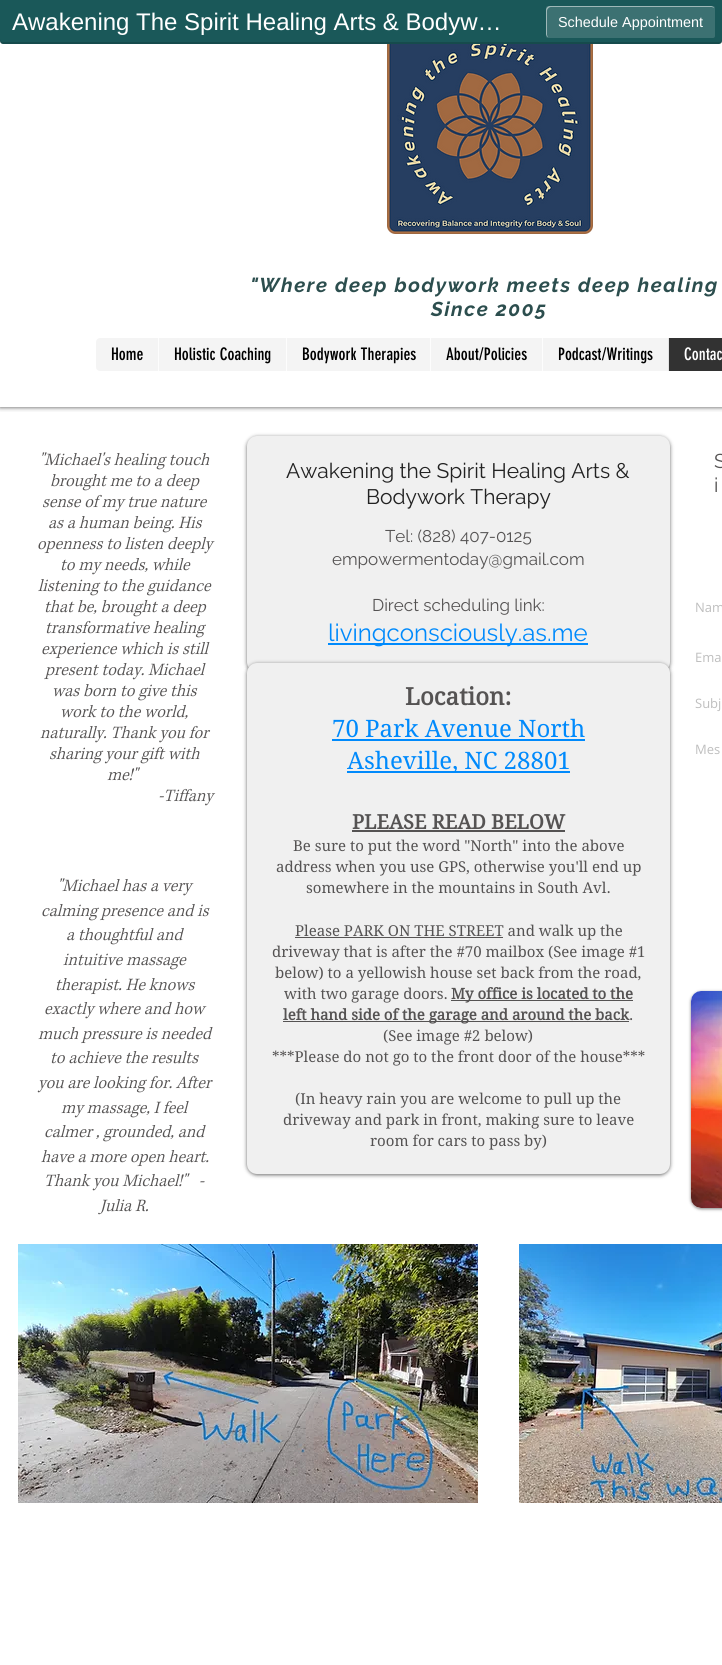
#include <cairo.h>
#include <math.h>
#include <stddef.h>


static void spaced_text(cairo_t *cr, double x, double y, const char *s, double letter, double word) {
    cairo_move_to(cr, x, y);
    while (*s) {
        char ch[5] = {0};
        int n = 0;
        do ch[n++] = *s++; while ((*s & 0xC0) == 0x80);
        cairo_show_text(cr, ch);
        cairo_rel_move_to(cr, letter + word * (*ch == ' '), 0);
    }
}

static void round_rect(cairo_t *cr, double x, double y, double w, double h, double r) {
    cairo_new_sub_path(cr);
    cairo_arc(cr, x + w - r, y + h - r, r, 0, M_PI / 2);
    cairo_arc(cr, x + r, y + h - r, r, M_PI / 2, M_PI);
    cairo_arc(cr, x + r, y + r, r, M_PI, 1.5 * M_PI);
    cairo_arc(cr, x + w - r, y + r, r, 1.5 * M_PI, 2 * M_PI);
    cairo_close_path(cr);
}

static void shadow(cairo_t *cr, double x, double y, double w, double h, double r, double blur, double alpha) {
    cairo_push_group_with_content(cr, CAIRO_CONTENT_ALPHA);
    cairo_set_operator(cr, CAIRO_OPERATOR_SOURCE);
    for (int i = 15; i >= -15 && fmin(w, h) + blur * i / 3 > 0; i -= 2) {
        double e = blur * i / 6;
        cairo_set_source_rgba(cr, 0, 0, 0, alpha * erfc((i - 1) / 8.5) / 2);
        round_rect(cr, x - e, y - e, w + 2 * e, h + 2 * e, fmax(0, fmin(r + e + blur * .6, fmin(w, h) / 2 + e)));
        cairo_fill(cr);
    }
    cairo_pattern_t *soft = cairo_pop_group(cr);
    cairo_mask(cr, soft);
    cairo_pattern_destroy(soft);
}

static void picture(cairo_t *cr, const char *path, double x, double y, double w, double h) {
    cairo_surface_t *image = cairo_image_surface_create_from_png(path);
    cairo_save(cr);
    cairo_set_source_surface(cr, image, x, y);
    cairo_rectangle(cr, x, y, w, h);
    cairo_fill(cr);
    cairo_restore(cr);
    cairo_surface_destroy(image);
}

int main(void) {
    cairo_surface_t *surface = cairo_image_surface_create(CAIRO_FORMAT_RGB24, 722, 1665);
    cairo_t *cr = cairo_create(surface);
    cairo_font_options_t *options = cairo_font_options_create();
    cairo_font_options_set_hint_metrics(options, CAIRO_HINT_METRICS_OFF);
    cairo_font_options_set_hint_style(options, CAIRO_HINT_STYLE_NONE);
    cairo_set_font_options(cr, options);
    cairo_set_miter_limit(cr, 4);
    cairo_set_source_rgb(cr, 1, 1, 1);
    cairo_paint(cr);
    cairo_save(cr);
    cairo_rectangle(cr, 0, 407, 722, 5);
    cairo_clip(cr);
    cairo_set_source_rgb(cr, 0, 0, 0);
    shadow(cr, 0, 4, 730, 403, 0, 2.5, 0.7);
    cairo_restore(cr);
    cairo_set_source_rgb(cr, 0.102, 0.345, 0.349);
    cairo_new_path(cr);
    cairo_move_to(cr, 0, 0);
    cairo_line_to(cr, 722, 0);
    cairo_line_to(cr, 722, 41);
    cairo_curve_to(cr, 722, 42.5, 720.5, 44, 719, 44);
    cairo_line_to(cr, 3, 44);
    cairo_curve_to(cr, 1.5, 44, 0, 42.5, 0, 41);
    cairo_close_path(cr);
    cairo_fill(cr);
    cairo_set_source_rgba(cr, 0, 0, 0, 0.15);
    cairo_new_path(cr);
    cairo_move_to(cr, 0, 39);
    cairo_line_to(cr, 0, 41);
    cairo_curve_to(cr, 0, 43, 1, 44, 3, 44);
    cairo_line_to(cr, 719, 44);
    cairo_curve_to(cr, 721, 44, 722, 43, 722, 41);
    cairo_line_to(cr, 722, 39);
    cairo_curve_to(cr, 722, 41, 721, 42, 719, 42);
    cairo_line_to(cr, 3, 42);
    cairo_curve_to(cr, 1, 42, 0, 41, 0, 39);
    cairo_close_path(cr);
    cairo_fill(cr);
    cairo_select_font_face(cr, "Liberation Sans", CAIRO_FONT_SLANT_NORMAL, CAIRO_FONT_WEIGHT_NORMAL);
    cairo_set_font_size(cr, 24);
    cairo_set_source_rgb(cr, 1, 1, 1);
    cairo_move_to(cr, 12, 30);
    cairo_show_text(cr, "Awakening The Spirit Healing Arts & Bodyw…");
    cairo_set_source_rgb(cr, 0.553, 0.675, 0.675);
    cairo_new_path(cr);
    cairo_move_to(cr, 551, 7);
    cairo_line_to(cr, 712, 7);
    cairo_line_to(cr, 714, 8);
    cairo_curve_to(cr, 714, 7, 712, 6, 711, 6);
    cairo_line_to(cr, 550, 6);
    cairo_curve_to(cr, 548, 6, 546, 8, 546, 10);
    cairo_line_to(cr, 546, 34);
    cairo_curve_to(cr, 546, 35, 547, 37, 548, 37);
    cairo_line_to(cr, 547, 35);
    cairo_line_to(cr, 547, 11);
    cairo_curve_to(cr, 547, 9, 549, 7, 551, 7);
    cairo_close_path(cr);
    cairo_fill(cr);
    cairo_set_font_size(cr, 14.4);
    cairo_set_source_rgb(cr, 1, 1, 1);
    cairo_move_to(cr, 558, 27);
    cairo_show_text(cr, "Schedule Appointment");
    cairo_set_source_rgba(cr, 1, 1, 1, 0.15);
    round_rect(cr, 546, 6, 169, 32, 2);
    cairo_fill(cr);
    picture(cr, "img1.png", 387, 44, 206, 190);
    cairo_select_font_face(cr, "Raleway", CAIRO_FONT_SLANT_ITALIC, CAIRO_FONT_WEIGHT_BOLD);
    cairo_set_font_size(cr, 20);
    cairo_set_source_rgb(cr, 0.173, 0.306, 0.306);
    spaced_text(cr, 250, 292, "\"Where deep bodywork meets deep healing", 1.6, 0);
    spaced_text(cr, 431, 316, "Since 2005", 1.6, 0);
    cairo_set_source_rgb(cr, 0.957, 0.957, 0.957);
    round_rect(cr, 96, 338, 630, 33, 4);
    cairo_fill(cr);
    cairo_select_font_face(cr, "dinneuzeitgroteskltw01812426", CAIRO_FONT_SLANT_NORMAL, CAIRO_FONT_WEIGHT_NORMAL);
    cairo_set_font_size(cr, 17);
    cairo_set_source_rgb(cr, 0, 0, 0);
    cairo_move_to(cr, 111, 360);
    cairo_show_text(cr, "Home");
    cairo_set_source_rgb(cr, 0.992, 0.992, 0.992);
    cairo_rectangle(cr, 158, 338, 1, 33);
    cairo_fill(cr);
    cairo_set_source_rgb(cr, 0, 0, 0);
    cairo_move_to(cr, 174, 360);
    cairo_show_text(cr, "Holistic Coaching");
    cairo_set_source_rgb(cr, 0.992, 0.992, 0.992);
    cairo_rectangle(cr, 286, 338, 1, 33);
    cairo_fill(cr);
    cairo_set_source_rgb(cr, 0, 0, 0);
    cairo_move_to(cr, 302, 360);
    cairo_show_text(cr, "Bodywork Therapies");
    cairo_set_source_rgb(cr, 0.992, 0.992, 0.992);
    cairo_rectangle(cr, 430, 338, 1, 33);
    cairo_fill(cr);
    cairo_set_source_rgb(cr, 0, 0, 0);
    cairo_move_to(cr, 446, 360);
    cairo_show_text(cr, "About/Policies");
    cairo_set_source_rgb(cr, 0.992, 0.992, 0.992);
    cairo_rectangle(cr, 542, 338, 1, 33);
    cairo_fill(cr);
    cairo_set_source_rgb(cr, 0, 0, 0);
    cairo_move_to(cr, 558, 360);
    cairo_show_text(cr, "Podcast/Writings");
    cairo_set_source_rgb(cr, 0.196, 0.196, 0.196);
    cairo_rectangle(cr, 669, 338, 53, 33);
    cairo_fill(cr);
    cairo_set_source_rgb(cr, 0.886, 0.886, 0.886);
    cairo_rectangle(cr, 668, 338, 1, 33);
    cairo_fill(cr);
    cairo_set_source_rgb(cr, 1, 1, 1);
    cairo_move_to(cr, 684, 360);
    cairo_show_text(cr, "Contac");
    picture(cr, "img2.png", 42, 452, 168, 18);
    picture(cr, "img3.png", 51, 474, 149, 17);
    picture(cr, "img4.png", 43, 494, 164, 18);
    picture(cr, "img5.png", 49, 516, 154, 17);
    picture(cr, "img6.png", 38, 536, 177, 18);
    picture(cr, "img7.png", 61, 558, 130, 17);
    picture(cr, "img8.png", 38, 579, 174, 17);
    picture(cr, "img9.png", 45, 599, 162, 18);
    picture(cr, "img10.png", 46, 620, 160, 18);
    picture(cr, "img11.png", 42, 642, 168, 17);
    picture(cr, "img12.png", 44, 662, 162, 18);
    picture(cr, "img13.png", 53, 684, 145, 17);
    picture(cr, "img14.png", 61, 704, 127, 15);
    picture(cr, "img15.png", 40, 725, 171, 18);
    picture(cr, "img16.png", 50, 746, 150, 18);
    picture(cr, "img17.png", 107, 767, 33, 14);
    picture(cr, "img18.png", 159, 788, 57, 18);
    cairo_set_source_rgb(cr, 0, 0, 0);
    shadow(cr, 247, 437, 423, 236, 10, 2, 0.6);
    cairo_set_source_rgb(cr, 0.941, 0.941, 0.941);
    round_rect(cr, 247, 436, 423, 236, 10);
    cairo_fill(cr);
    cairo_select_font_face(cr, "Raleway", CAIRO_FONT_SLANT_NORMAL, CAIRO_FONT_WEIGHT_NORMAL);
    cairo_set_font_size(cr, 21);
    cairo_set_source_rgb(cr, 0.133, 0.133, 0.133);
    cairo_move_to(cr, 286, 478);
    cairo_show_text(cr, "Awakening the Spirit Healing Arts &");
    cairo_move_to(cr, 366, 504);
    cairo_show_text(cr, "Bodywork Therapy");
    cairo_set_font_size(cr, 17);
    cairo_set_source_rgb(cr, 0.333, 0.325, 0.325);
    cairo_move_to(cr, 385, 542);
    cairo_show_text(cr, "Tel: (828) 407-0125");
    cairo_move_to(cr, 332, 565);
    cairo_show_text(cr, "empowermentoday@gmail.com");
    cairo_move_to(cr, 372, 611);
    cairo_show_text(cr, "Direct scheduling link:");
    cairo_set_source_rgb(cr, 0, 0.541, 0.988);
    cairo_rectangle(cr, 328, 643, 260, 2);
    cairo_fill(cr);
    cairo_set_font_size(cr, 24);
    cairo_move_to(cr, 328, 641);
    cairo_show_text(cr, "livingconsciously.as.me");
    cairo_set_font_size(cr, 20);
    cairo_set_source_rgb(cr, 0.333, 0.325, 0.325);
    cairo_move_to(cr, 714, 468);
    cairo_show_text(cr, "S");
    cairo_move_to(cr, 714, 492);
    cairo_show_text(cr, "i");
    picture(cr, "img19.png", 60, 878, 134, 18);
    picture(cr, "img20.png", 42, 903, 168, 18);
    picture(cr, "img21.png", 67, 927, 117, 18);
    picture(cr, "img22.png", 63, 953, 124, 17);
    picture(cr, "img23.png", 56, 978, 140, 17);
    picture(cr, "img24.png", 45, 1001, 162, 18);
    picture(cr, "img25.png", 38, 1026, 175, 18);
    picture(cr, "img26.png", 51, 1051, 148, 13);
    picture(cr, "img27.png", 37, 1075, 176, 18);
    picture(cr, "img28.png", 61, 1100, 128, 18);
    picture(cr, "img29.png", 45, 1124, 161, 18);
    picture(cr, "img30.png", 41, 1150, 168, 17);
    picture(cr, "img31.png", 46, 1173, 159, 18);
    picture(cr, "img32.png", 98, 1199, 50, 16);
    cairo_set_source_rgb(cr, 0, 0, 0);
    shadow(cr, 247, 664, 423, 511, 10, 2, 0.6);
    cairo_set_source_rgb(cr, 0.941, 0.941, 0.941);
    round_rect(cr, 247, 663, 423, 511, 10);
    cairo_fill(cr);
    cairo_select_font_face(cr, "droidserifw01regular", CAIRO_FONT_SLANT_NORMAL, CAIRO_FONT_WEIGHT_BOLD);
    cairo_set_font_size(cr, 24);
    cairo_set_source_rgb(cr, 0.333, 0.325, 0.325);
    cairo_move_to(cr, 405, 705);
    cairo_show_text(cr, "Location:");
    cairo_select_font_face(cr, "droidserifw01regular", CAIRO_FONT_SLANT_NORMAL, CAIRO_FONT_WEIGHT_NORMAL);
    cairo_set_source_rgb(cr, 0, 0.541, 0.988);
    cairo_move_to(cr, 332, 737);
    cairo_show_text(cr, "70 Park Avenue North");
    cairo_rectangle(cr, 332, 739, 253, 2);
    cairo_fill(cr);
    cairo_rectangle(cr, 347, 771, 223, 2);
    cairo_fill(cr);
    cairo_move_to(cr, 347, 769);
    cairo_show_text(cr, "Asheville, NC 28801");
    cairo_select_font_face(cr, "droidserifw01regular", CAIRO_FONT_SLANT_NORMAL, CAIRO_FONT_WEIGHT_BOLD);
    cairo_set_font_size(cr, 20);
    cairo_set_source_rgb(cr, 0.333, 0.325, 0.325);
    cairo_move_to(cr, 352, 829);
    cairo_show_text(cr, "PLEASE READ BELOW");
    cairo_rectangle(cr, 352, 830, 213, 2);
    cairo_fill(cr);
    cairo_select_font_face(cr, "droidserifw01regular", CAIRO_FONT_SLANT_NORMAL, CAIRO_FONT_WEIGHT_NORMAL);
    cairo_set_font_size(cr, 15);
    cairo_move_to(cr, 293, 851);
    cairo_show_text(cr, "Be sure to put the word \"North\" into the above");
    cairo_move_to(cr, 276, 872);
    cairo_show_text(cr, "address when you use GPS, otherwise you'll end up");
    cairo_move_to(cr, 306, 893);
    cairo_show_text(cr, "somewhere in the mountains in South Avl.");
    cairo_rectangle(cr, 295, 937, 208, 1);
    cairo_fill(cr);
    cairo_move_to(cr, 295, 936);
    cairo_show_text(cr, "Please PARK ON THE STREET and walk up the");
    cairo_move_to(cr, 272, 957);
    cairo_show_text(cr, "driveway that is after the #70 mailbox (See image #1");
    cairo_move_to(cr, 275, 978);
    cairo_show_text(cr, "below) to a yellowish house set back from the road,");
    cairo_move_to(cr, 284, 999);
    cairo_show_text(cr, "with two garage doors.");
    cairo_rectangle(cr, 451, 1000, 182, 1);
    cairo_fill(cr);
    cairo_select_font_face(cr, "droidserifw01regular", CAIRO_FONT_SLANT_NORMAL, CAIRO_FONT_WEIGHT_BOLD);
    cairo_move_to(cr, 451, 999);
    cairo_show_text(cr, "My office is located to the");
    cairo_rectangle(cr, 283, 1021, 346, 1);
    cairo_fill(cr);
    cairo_move_to(cr, 283, 1020);
    cairo_show_text(cr, "left hand side of the garage and around the back");
    cairo_select_font_face(cr, "droidserifw01regular", CAIRO_FONT_SLANT_NORMAL, CAIRO_FONT_WEIGHT_NORMAL);
    cairo_move_to(cr, 629, 1020);
    cairo_show_text(cr, ".");
    cairo_move_to(cr, 383, 1041);
    cairo_show_text(cr, "(See image #2 below)");
    cairo_move_to(cr, 272, 1062);
    cairo_show_text(cr, "***Please do not go to the front door of the house***");
    cairo_move_to(cr, 295, 1104);
    cairo_show_text(cr, "(In heavy rain you are welcome to pull up the");
    cairo_move_to(cr, 283, 1125);
    cairo_show_text(cr, "driveway and park in front, making sure to leave");
    cairo_move_to(cr, 370, 1146);
    cairo_show_text(cr, "room for cars to pass by)");
    cairo_select_font_face(cr, "Open Sans", CAIRO_FONT_SLANT_NORMAL, CAIRO_FONT_WEIGHT_NORMAL);
    cairo_set_font_size(cr, 13);
    cairo_set_source_rgb(cr, 0.745, 0.745, 0.745);
    cairo_move_to(cr, 695, 612);
    cairo_show_text(cr, "Nam");
    cairo_move_to(cr, 695, 662);
    cairo_show_text(cr, "Ema");
    cairo_move_to(cr, 695, 708);
    cairo_show_text(cr, "Subj");
    cairo_move_to(cr, 695, 754);
    cairo_show_text(cr, "Mes");
    cairo_set_source_rgb(cr, 0, 0, 0);
    shadow(cr, 691, 992, 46, 217, 10, 1.5, 0.5);
    cairo_set_source_rgb(cr, 1, 1, 1);
    round_rect(cr, 691, 991, 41, 217, 10);
    cairo_fill(cr);
    picture(cr, "img33.png", 691, 991, 31, 217);
    picture(cr, "img34.png", 18, 1244, 460, 259);
    picture(cr, "img35.png", 519, 1244, 203, 259);
    cairo_surface_write_to_png(surface, "page.png");
    cairo_font_options_destroy(options);
    cairo_destroy(cr);
    cairo_surface_destroy(surface);
    return 0;
}
